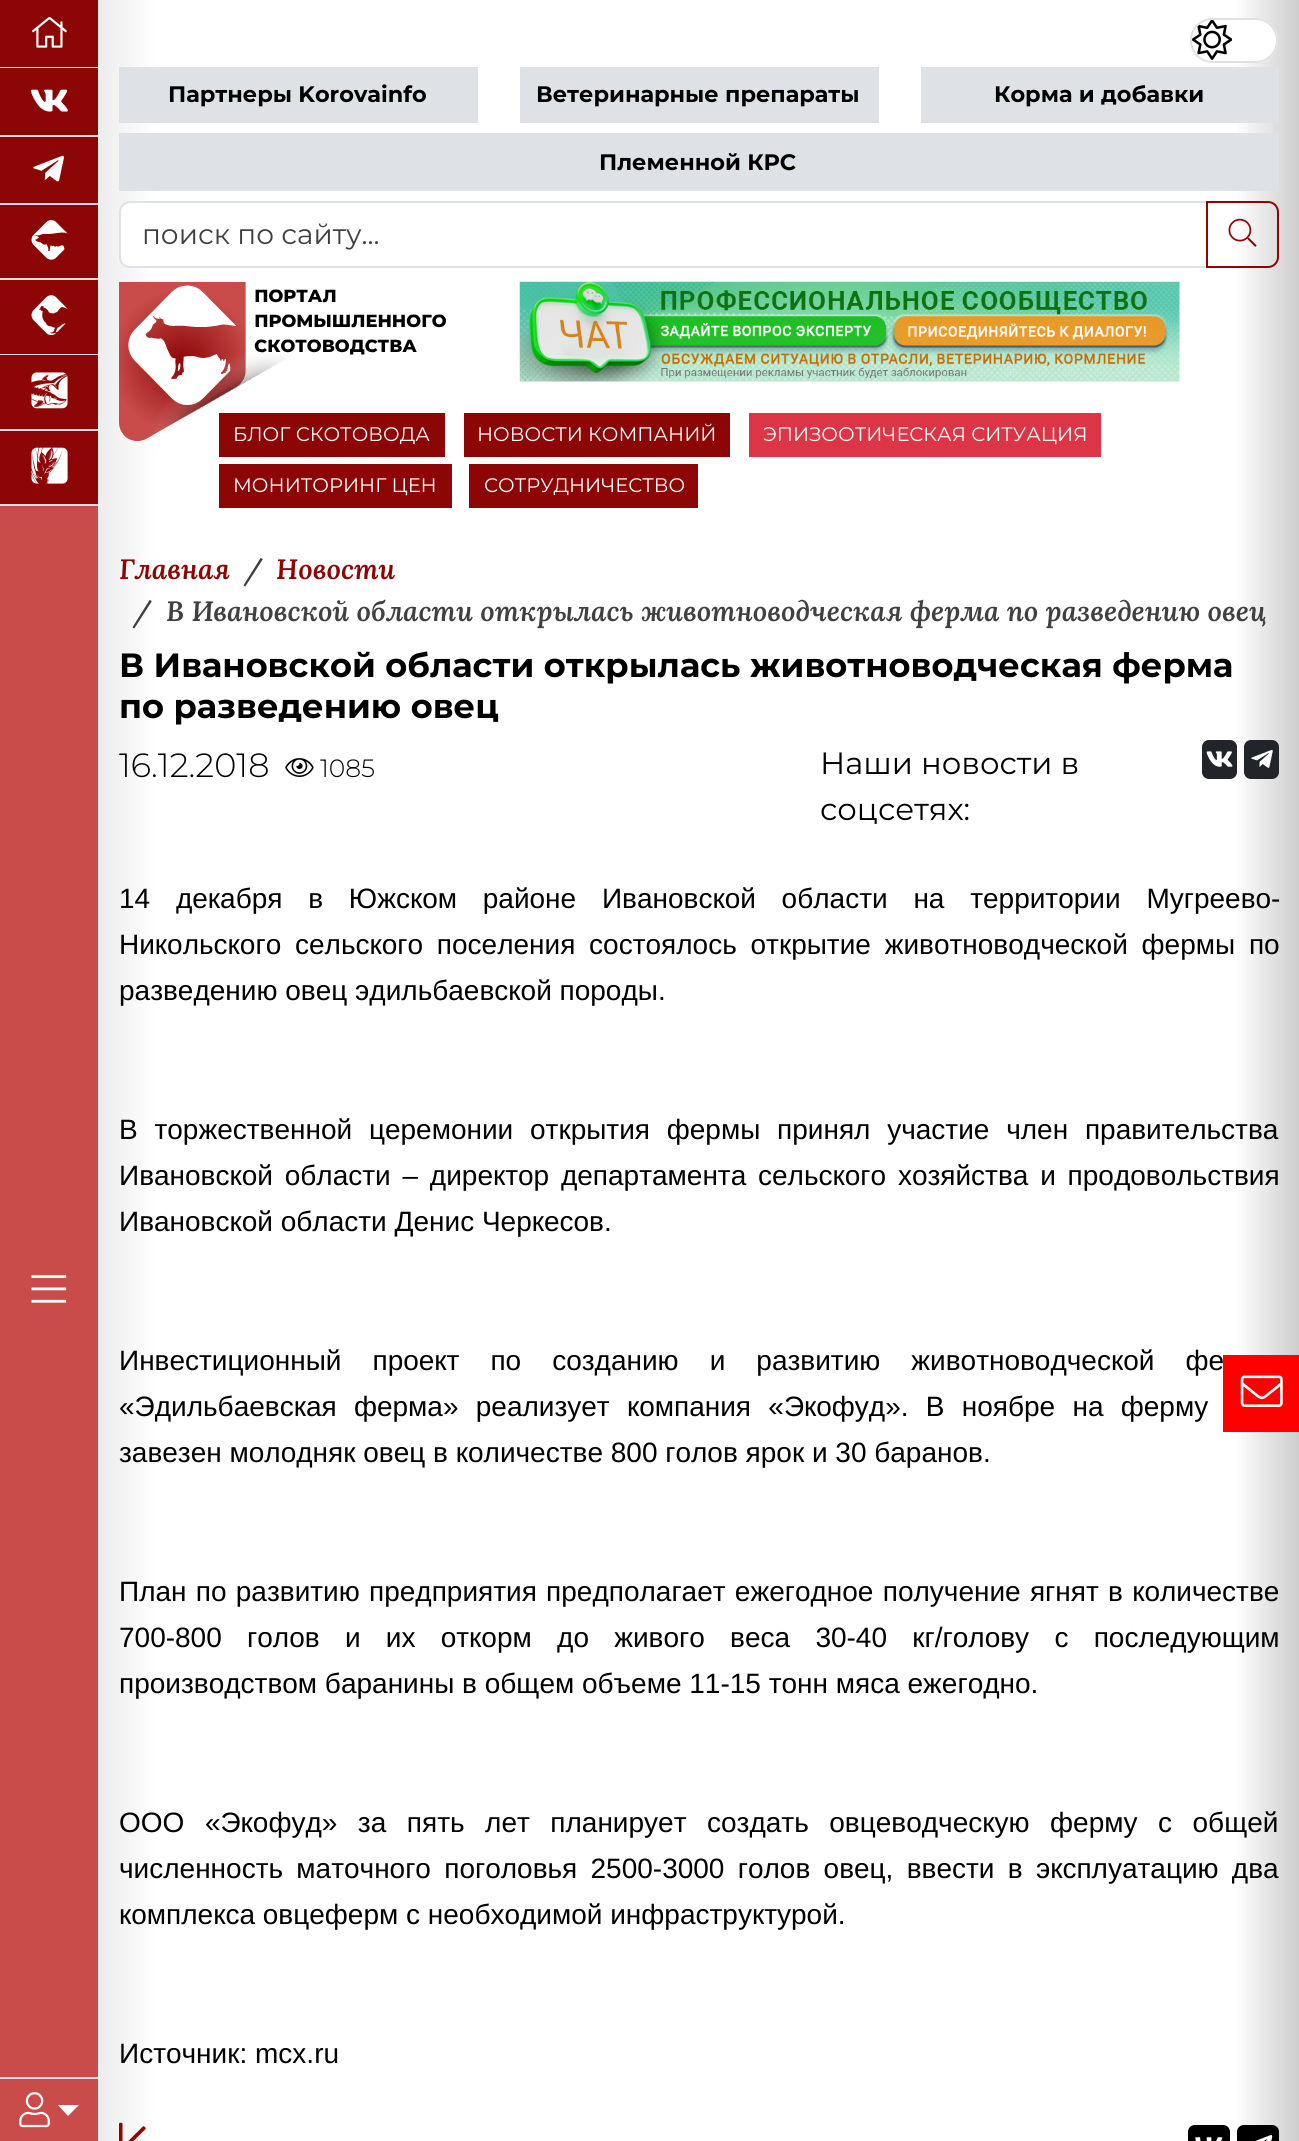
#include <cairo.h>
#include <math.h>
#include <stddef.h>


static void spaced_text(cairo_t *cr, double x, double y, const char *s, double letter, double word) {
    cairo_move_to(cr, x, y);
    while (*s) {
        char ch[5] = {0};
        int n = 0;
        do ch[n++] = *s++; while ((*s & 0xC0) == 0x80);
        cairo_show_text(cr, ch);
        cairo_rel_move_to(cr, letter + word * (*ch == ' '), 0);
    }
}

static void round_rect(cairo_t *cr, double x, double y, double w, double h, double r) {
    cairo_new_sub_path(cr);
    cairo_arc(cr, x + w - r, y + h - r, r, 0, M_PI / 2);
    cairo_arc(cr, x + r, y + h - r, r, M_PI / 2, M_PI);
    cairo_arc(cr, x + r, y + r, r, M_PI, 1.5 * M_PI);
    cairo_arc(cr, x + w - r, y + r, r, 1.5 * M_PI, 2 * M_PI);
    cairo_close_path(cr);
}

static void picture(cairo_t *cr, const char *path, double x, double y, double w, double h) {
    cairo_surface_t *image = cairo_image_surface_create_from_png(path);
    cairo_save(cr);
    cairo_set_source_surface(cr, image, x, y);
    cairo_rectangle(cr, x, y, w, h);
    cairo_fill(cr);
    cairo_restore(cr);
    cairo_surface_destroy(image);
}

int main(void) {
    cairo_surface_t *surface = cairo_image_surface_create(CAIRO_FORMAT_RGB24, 1299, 2141);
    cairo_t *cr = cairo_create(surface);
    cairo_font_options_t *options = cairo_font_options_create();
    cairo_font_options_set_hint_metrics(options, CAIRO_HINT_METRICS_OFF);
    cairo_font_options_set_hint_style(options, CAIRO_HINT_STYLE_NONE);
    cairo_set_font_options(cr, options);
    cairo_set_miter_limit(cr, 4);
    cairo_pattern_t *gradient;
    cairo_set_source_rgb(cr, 1, 1, 1);
    cairo_paint(cr);
    gradient = cairo_pattern_create_linear(0, 1071, 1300, 1071);
    cairo_pattern_add_color_stop_rgba(gradient, 0, 0.8, 0.8, 0.8, 1);
    cairo_pattern_add_color_stop_rgba(gradient, 0.12, 1, 1, 1, 1);
    cairo_pattern_add_color_stop_rgba(gradient, 0.95, 1, 1, 1, 1);
    cairo_pattern_add_color_stop_rgba(gradient, 1, 0.8, 0.8, 0.8, 1);
    cairo_set_source(cr, gradient);
    cairo_pattern_destroy(gradient);
    cairo_rectangle(cr, 98, 0, 1201, 2141);
    cairo_fill(cr);
    cairo_set_source_rgb(cr, 0.788, 0.298, 0.294);
    cairo_rectangle(cr, 0, 506, 98, 1635);
    cairo_fill(cr);
    cairo_set_source_rgb(cr, 0.549, 0.027, 0.024);
    cairo_rectangle(cr, 0, 0, 98, 67);
    cairo_fill(cr);
    cairo_set_source_rgb(cr, 0.871, 0.886, 0.902);
    cairo_rectangle(cr, 0, 67, 98, 1);
    cairo_fill(cr);
    picture(cr, "img1.png", 32, 17, 35, 31);
    cairo_set_source_rgb(cr, 0.549, 0.027, 0.024);
    cairo_rectangle(cr, 0, 68, 98, 67);
    cairo_fill(cr);
    cairo_set_source_rgb(cr, 0.871, 0.886, 0.902);
    cairo_rectangle(cr, 0, 135, 98, 2);
    cairo_fill(cr);
    picture(cr, "img2.png", 31, 89, 37, 23);
    cairo_set_source_rgb(cr, 0.549, 0.027, 0.024);
    cairo_rectangle(cr, 0, 137, 98, 66);
    cairo_fill(cr);
    cairo_set_source_rgb(cr, 0.871, 0.886, 0.902);
    cairo_rectangle(cr, 0, 203, 98, 2);
    cairo_fill(cr);
    picture(cr, "img3.png", 33, 155, 31, 27);
    cairo_set_source_rgb(cr, 0.549, 0.027, 0.024);
    cairo_rectangle(cr, 0, 205, 98, 73);
    cairo_fill(cr);
    cairo_set_source_rgb(cr, 0.871, 0.886, 0.902);
    cairo_rectangle(cr, 0, 278, 98, 2);
    cairo_fill(cr);
    picture(cr, "img4.png", 31, 220, 37, 40);
    cairo_set_source_rgb(cr, 0.549, 0.027, 0.024);
    cairo_rectangle(cr, 0, 280, 98, 74);
    cairo_fill(cr);
    cairo_set_source_rgb(cr, 0.871, 0.886, 0.902);
    cairo_rectangle(cr, 0, 354, 98, 1);
    cairo_fill(cr);
    picture(cr, "img5.png", 31, 295, 37, 41);
    cairo_set_source_rgb(cr, 0.549, 0.027, 0.024);
    cairo_rectangle(cr, 0, 355, 98, 74);
    cairo_fill(cr);
    cairo_set_source_rgb(cr, 0.871, 0.886, 0.902);
    cairo_rectangle(cr, 0, 429, 98, 2);
    cairo_fill(cr);
    picture(cr, "img6.png", 31, 372, 37, 37);
    cairo_set_source_rgb(cr, 0.549, 0.027, 0.024);
    cairo_rectangle(cr, 0, 431, 98, 73);
    cairo_fill(cr);
    cairo_set_source_rgb(cr, 0.871, 0.886, 0.902);
    cairo_rectangle(cr, 0, 504, 98, 2);
    cairo_fill(cr);
    picture(cr, "img7.png", 31, 447, 37, 37);
    picture(cr, "img8.png", 31, 1275, 36, 28);
    cairo_rectangle(cr, 0, 2077, 98, 2);
    cairo_fill(cr);
    picture(cr, "img9.png", 19, 2092, 31, 36);
    cairo_set_source_rgb(cr, 1, 1, 1);
    cairo_new_path(cr);
    cairo_move_to(cr, 58, 2105);
    cairo_line_to(cr, 79, 2105);
    cairo_line_to(cr, 68, 2116);
    cairo_close_path(cr);
    cairo_fill(cr);
    round_rect(cr, 1190, 18, 88, 45, 22.5);
    cairo_fill(cr);
    picture(cr, "img10.png", 1192, 20, 40, 40);
    round_rect(cr, 1191, 19, 86, 43, 21.5);
    cairo_set_source_rgb(cr, 0.871, 0.886, 0.902);
    cairo_stroke(cr);
    cairo_rectangle(cr, 119, 67, 359, 56);
    cairo_fill(cr);
    cairo_select_font_face(cr, "Montserrat", CAIRO_FONT_SLANT_NORMAL, CAIRO_FONT_WEIGHT_BOLD);
    cairo_set_font_size(cr, 22.4);
    cairo_set_source_rgb(cr, 0, 0, 0);
    cairo_move_to(cr, 168, 102);
    cairo_show_text(cr, "Партнеры Korovainfo");
    cairo_set_source_rgb(cr, 0.871, 0.886, 0.902);
    cairo_rectangle(cr, 520, 67, 359, 56);
    cairo_fill(cr);
    cairo_set_source_rgb(cr, 0, 0, 0);
    cairo_move_to(cr, 536, 102);
    cairo_show_text(cr, "Ветеринарные препараты");
    cairo_set_source_rgb(cr, 0.871, 0.886, 0.902);
    cairo_rectangle(cr, 921, 67, 358, 56);
    cairo_fill(cr);
    cairo_set_source_rgb(cr, 0, 0, 0);
    cairo_move_to(cr, 994, 102);
    cairo_show_text(cr, "Корма и добавки");
    cairo_set_source_rgb(cr, 0.871, 0.886, 0.902);
    cairo_rectangle(cr, 119, 133, 1160, 58);
    cairo_fill(cr);
    cairo_set_source_rgb(cr, 0, 0, 0);
    cairo_move_to(cr, 599, 170);
    cairo_show_text(cr, "Племенной КРС");
    cairo_set_source_rgb(cr, 1, 1, 1);
    cairo_new_path(cr);
    cairo_move_to(cr, 130, 202);
    cairo_line_to(cr, 1207, 202);
    cairo_line_to(cr, 1207, 267);
    cairo_line_to(cr, 130, 267);
    cairo_curve_to(cr, 124.5, 267, 120, 262.5, 120, 257);
    cairo_line_to(cr, 120, 212);
    cairo_curve_to(cr, 120, 206.5, 124.5, 202, 130, 202);
    cairo_close_path(cr);
    cairo_fill_preserve(cr);
    cairo_set_source_rgb(cr, 0.871, 0.886, 0.902);
    cairo_stroke(cr);
    cairo_select_font_face(cr, "Montserrat", CAIRO_FONT_SLANT_NORMAL, CAIRO_FONT_WEIGHT_NORMAL);
    cairo_set_font_size(cr, 28);
    cairo_set_source_rgb(cr, 0.251, 0.251, 0.251);
    cairo_move_to(cr, 142, 244);
    cairo_show_text(cr, "поиск по сайту...");
    cairo_new_path(cr);
    cairo_move_to(cr, 1207, 202);
    cairo_line_to(cr, 1268, 202);
    cairo_curve_to(cr, 1273.5, 202, 1278, 206.5, 1278, 212);
    cairo_line_to(cr, 1278, 257);
    cairo_curve_to(cr, 1278, 262.5, 1273.5, 267, 1268, 267);
    cairo_line_to(cr, 1207, 267);
    cairo_close_path(cr);
    cairo_set_source_rgb(cr, 0.549, 0.027, 0.024);
    cairo_stroke(cr);
    picture(cr, "img11.png", 1228, 218, 29, 29);
    cairo_rectangle(cr, 219, 413, 226, 44);
    cairo_fill(cr);
    cairo_set_font_size(cr, 19.6);
    cairo_set_source_rgb(cr, 1, 1, 1);
    cairo_move_to(cr, 233, 441);
    cairo_show_text(cr, "БЛОГ СКОТОВОДА");
    picture(cr, "img12.png", 119, 281, 327, 160);
    picture(cr, "img13.png", 519, 281, 661, 101);
    cairo_set_source_rgb(cr, 0.549, 0.027, 0.024);
    cairo_rectangle(cr, 464, 413, 266, 44);
    cairo_fill(cr);
    cairo_set_source_rgb(cr, 1, 1, 1);
    cairo_move_to(cr, 477, 441);
    cairo_show_text(cr, "НОВОСТИ КОМПАНИЙ");
    cairo_set_source_rgb(cr, 0.863, 0.208, 0.271);
    cairo_rectangle(cr, 749, 413, 352, 44);
    cairo_fill(cr);
    cairo_set_source_rgb(cr, 1, 1, 1);
    cairo_move_to(cr, 763, 441);
    cairo_show_text(cr, "ЭПИЗООТИЧЕСКАЯ СИТУАЦИЯ");
    cairo_set_source_rgb(cr, 0.549, 0.027, 0.024);
    cairo_rectangle(cr, 219, 464, 233, 44);
    cairo_fill(cr);
    cairo_set_source_rgb(cr, 1, 1, 1);
    cairo_move_to(cr, 233, 492);
    cairo_show_text(cr, "МОНИТОРИНГ ЦЕН");
    cairo_set_source_rgb(cr, 0.549, 0.027, 0.024);
    cairo_rectangle(cr, 469, 464, 229, 44);
    cairo_fill(cr);
    cairo_set_source_rgb(cr, 1, 1, 1);
    cairo_move_to(cr, 484, 492);
    cairo_show_text(cr, "СОТРУДНИЧЕСТВО");
    cairo_select_font_face(cr, "Lora SemiBold", CAIRO_FONT_SLANT_ITALIC, CAIRO_FONT_WEIGHT_NORMAL);
    cairo_set_font_size(cr, 28);
    cairo_set_source_rgb(cr, 0.549, 0.027, 0.024);
    cairo_move_to(cr, 119, 579);
    cairo_show_text(cr, "Главная");
    cairo_set_source_rgb(cr, 0.251, 0.251, 0.251);
    cairo_move_to(cr, 244, 579);
    cairo_show_text(cr, "/");
    cairo_set_source_rgb(cr, 0.549, 0.027, 0.024);
    cairo_move_to(cr, 276, 579);
    cairo_show_text(cr, "Новости");
    cairo_set_source_rgb(cr, 0.251, 0.251, 0.251);
    cairo_move_to(cr, 133, 621);
    cairo_show_text(cr, "/");
    cairo_move_to(cr, 166, 621);
    cairo_show_text(cr, "В Ивановской области открылась животноводческая ферма по разведению овец");
    cairo_select_font_face(cr, "Montserrat", CAIRO_FONT_SLANT_NORMAL, CAIRO_FONT_WEIGHT_BOLD);
    cairo_set_font_size(cr, 33.6);
    cairo_set_source_rgb(cr, 0, 0, 0);
    cairo_move_to(cr, 119, 677);
    cairo_show_text(cr, "В Ивановской области открылась животноводческая ферма");
    cairo_move_to(cr, 119, 718);
    cairo_show_text(cr, "по разведению овец");
    cairo_select_font_face(cr, "Montserrat Light", CAIRO_FONT_SLANT_NORMAL, CAIRO_FONT_WEIGHT_NORMAL);
    cairo_move_to(cr, 119, 777);
    cairo_show_text(cr, "16.12.2018");
    picture(cr, "img14.png", 285, 758, 29, 19);
    cairo_set_font_size(cr, 25);
    cairo_move_to(cr, 320, 777);
    cairo_show_text(cr, "1085");
    cairo_select_font_face(cr, "Montserrat", CAIRO_FONT_SLANT_NORMAL, CAIRO_FONT_WEIGHT_NORMAL);
    cairo_set_font_size(cr, 30.75);
    cairo_move_to(cr, 820, 774);
    cairo_show_text(cr, "Наши новости в");
    cairo_move_to(cr, 820, 820);
    cairo_show_text(cr, "соцсетях:");
    cairo_set_source_rgb(cr, 0.129, 0.145, 0.161);
    round_rect(cr, 1203, 741, 33, 37, 6);
    cairo_fill_preserve(cr);
    cairo_stroke(cr);
    picture(cr, "img15.png", 1206, 751, 27, 16);
    round_rect(cr, 1245, 741, 33, 37, 6);
    cairo_fill_preserve(cr);
    cairo_stroke(cr);
    picture(cr, "img16.png", 1251, 749, 22, 19);
    cairo_select_font_face(cr, "Liberation Sans", CAIRO_FONT_SLANT_NORMAL, CAIRO_FONT_WEIGHT_NORMAL);
    cairo_set_font_size(cr, 28);
    cairo_set_source_rgb(cr, 0, 0, 0);
    spaced_text(cr, 119, 908, "14 декабря в Южском районе Ивановской области на территории Мугреево-", 0, 18);
    spaced_text(cr, 119, 954, "Никольского сельского поселения состоялось открытие животноводческой фермы по", 0, 6);
    cairo_move_to(cr, 119, 1000);
    cairo_show_text(cr, "разведению овец эдильбаевской породы.");
    spaced_text(cr, 119, 1139, "В торжественной церемонии открытия фермы принял участие член правительства", 0, 9);
    spaced_text(cr, 119, 1185, "Ивановской области – директор департамента сельского хозяйства и продовольствия", 0, 4);
    cairo_move_to(cr, 119, 1231);
    cairo_show_text(cr, "Ивановской области Денис Черкесов.");
    spaced_text(cr, 119, 1370, "Инвестиционный проект по созданию и развитию животноводческой фе", 0, 23.25);
    spaced_text(cr, 119, 1416, "«Эдильбаевская ферма» реализует компания «Экофуд». В ноябре на ферму", 0, 9.5);
    cairo_move_to(cr, 119, 1462);
    cairo_show_text(cr, "завезен молодняк овец в количестве 800 голов ярок и 30 баранов.");
    spaced_text(cr, 119, 1601, "План по развитию предприятия предполагает ежегодное получение ягнят в количестве", 0, 1.5);
    spaced_text(cr, 119, 1647, "700-800 голов и их откорм до живого веса 30-40 кг/голову с последующим", 0, 17.5);
    cairo_move_to(cr, 119, 1693);
    cairo_show_text(cr, "производством баранины в общем объеме 11-15 тонн мяса ежегодно.");
    spaced_text(cr, 119, 1832, "ООО «Экофуд» за пять лет планирует создать овцеводческую ферму с общей", 0, 12.75);
    spaced_text(cr, 119, 1878, "численность маточного поголовья 2500-3000 голов овец, ввести в эксплуатацию два", 0, 5.5);
    cairo_move_to(cr, 119, 1924);
    cairo_show_text(cr, "комплекса овцеферм с необходимой инфраструктурой.");
    cairo_move_to(cr, 119, 2063);
    cairo_show_text(cr, "Источник: mcx.ru");
    picture(cr, "img17.png", 119, 2122, 27, 19);
    cairo_new_path(cr);
    cairo_move_to(cr, 1195, 2125);
    cairo_line_to(cr, 1223, 2125);
    cairo_curve_to(cr, 1227, 2125, 1230, 2128, 1230, 2132);
    cairo_line_to(cr, 1230, 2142);
    cairo_line_to(cr, 1188, 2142);
    cairo_line_to(cr, 1188, 2132);
    cairo_curve_to(cr, 1188, 2128, 1191, 2125, 1195, 2125);
    cairo_close_path(cr);
    cairo_fill(cr);
    picture(cr, "img18.png", 1195, 2137, 28, 4);
    cairo_new_path(cr);
    cairo_move_to(cr, 1244, 2125);
    cairo_line_to(cr, 1272, 2125);
    cairo_curve_to(cr, 1276, 2125, 1279, 2128, 1279, 2132);
    cairo_line_to(cr, 1279, 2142);
    cairo_line_to(cr, 1237, 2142);
    cairo_line_to(cr, 1237, 2132);
    cairo_curve_to(cr, 1237, 2128, 1240, 2125, 1244, 2125);
    cairo_close_path(cr);
    cairo_fill(cr);
    picture(cr, "img19.png", 1255, 2135, 18, 6);
    cairo_set_source_rgb(cr, 1, 0, 0);
    cairo_rectangle(cr, 1223, 1355, 76, 77);
    cairo_fill(cr);
    picture(cr, "img20.png", 1240, 1375, 43, 32);
    cairo_surface_write_to_png(surface, "page.png");
    cairo_font_options_destroy(options);
    cairo_destroy(cr);
    cairo_surface_destroy(surface);
    return 0;
}
